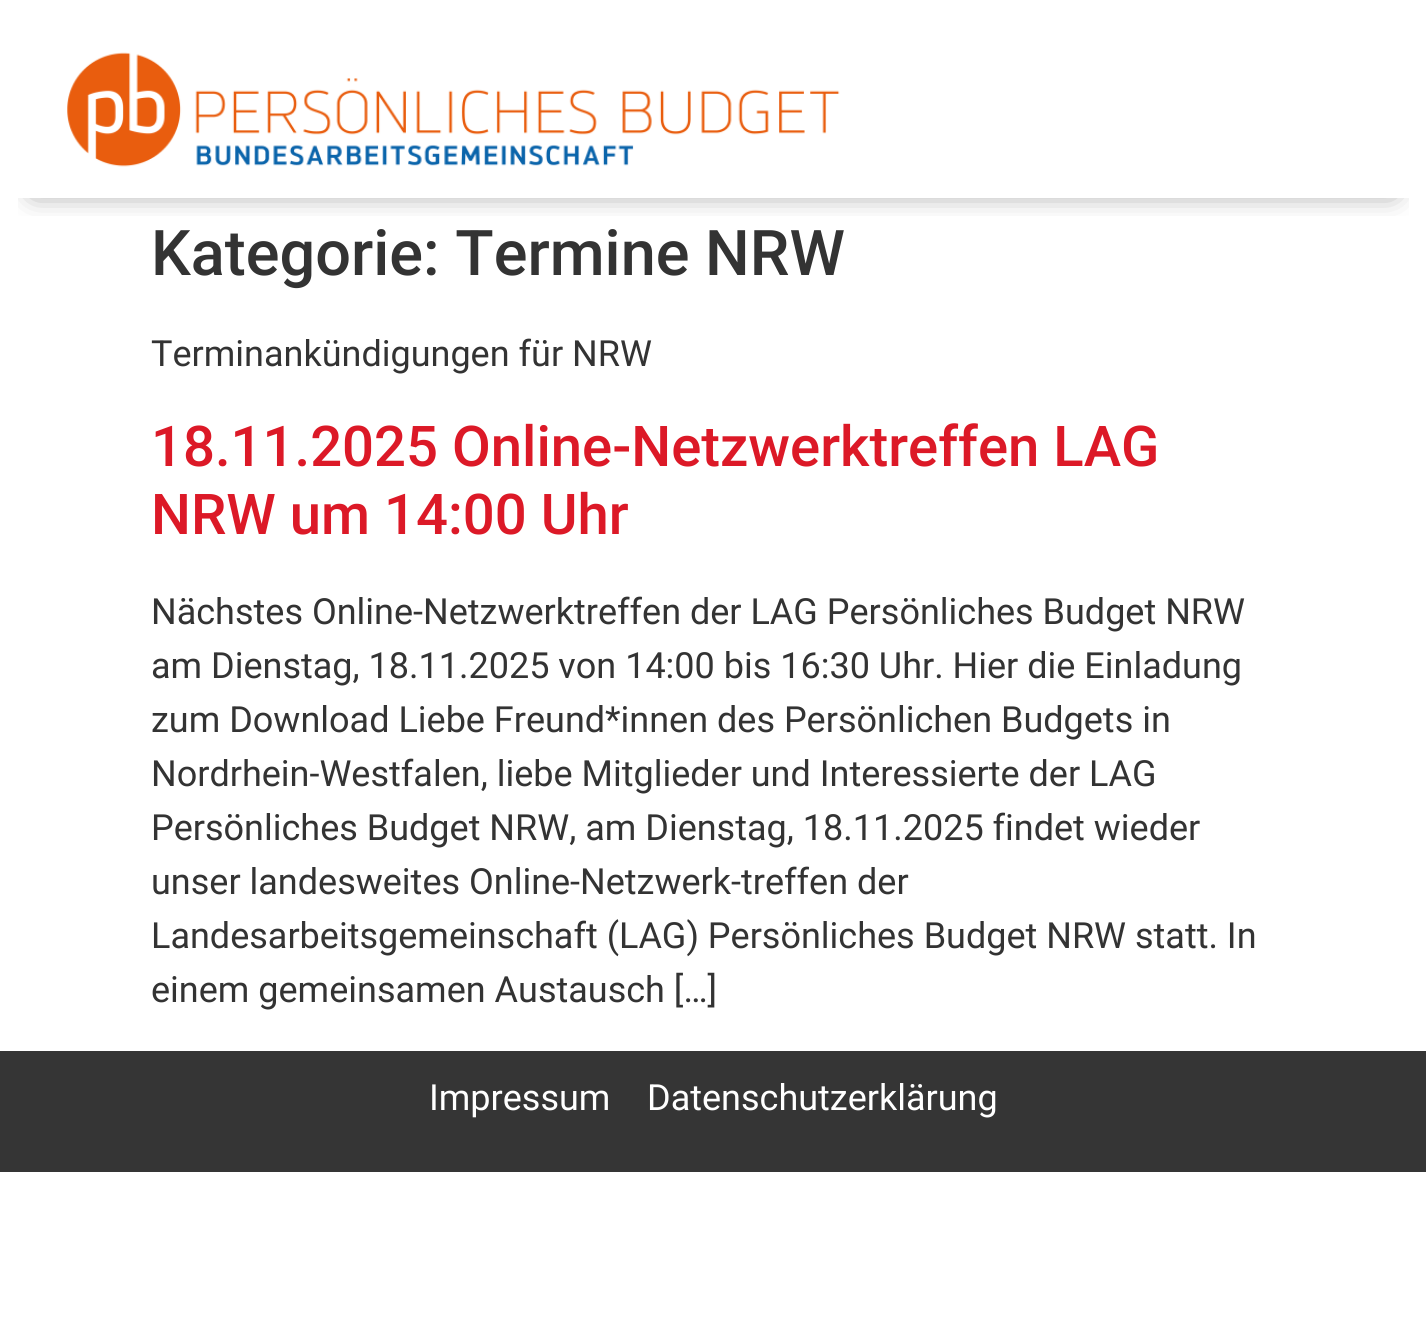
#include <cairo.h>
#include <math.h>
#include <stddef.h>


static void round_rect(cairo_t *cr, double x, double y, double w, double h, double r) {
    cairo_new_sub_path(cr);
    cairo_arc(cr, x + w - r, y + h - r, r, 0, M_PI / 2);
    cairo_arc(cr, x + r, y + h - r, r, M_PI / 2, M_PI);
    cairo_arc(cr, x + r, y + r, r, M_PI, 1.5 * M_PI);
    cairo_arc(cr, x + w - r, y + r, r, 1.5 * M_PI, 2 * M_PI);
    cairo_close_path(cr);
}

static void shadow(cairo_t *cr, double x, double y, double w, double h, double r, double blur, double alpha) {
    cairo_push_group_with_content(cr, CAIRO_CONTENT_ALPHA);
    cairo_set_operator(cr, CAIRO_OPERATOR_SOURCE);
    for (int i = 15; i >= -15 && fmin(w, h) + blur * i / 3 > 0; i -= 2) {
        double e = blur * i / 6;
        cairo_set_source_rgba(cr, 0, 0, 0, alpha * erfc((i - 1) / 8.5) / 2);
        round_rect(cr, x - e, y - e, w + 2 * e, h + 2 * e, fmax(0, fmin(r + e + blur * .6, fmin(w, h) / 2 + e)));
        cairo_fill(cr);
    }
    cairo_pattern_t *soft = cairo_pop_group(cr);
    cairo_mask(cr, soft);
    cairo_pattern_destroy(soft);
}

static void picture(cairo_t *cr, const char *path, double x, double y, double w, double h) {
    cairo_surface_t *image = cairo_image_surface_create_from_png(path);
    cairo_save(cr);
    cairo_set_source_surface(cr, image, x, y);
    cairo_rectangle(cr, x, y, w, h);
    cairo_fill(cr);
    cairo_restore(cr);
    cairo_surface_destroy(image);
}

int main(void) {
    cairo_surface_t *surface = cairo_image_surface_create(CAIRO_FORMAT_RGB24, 1426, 1317);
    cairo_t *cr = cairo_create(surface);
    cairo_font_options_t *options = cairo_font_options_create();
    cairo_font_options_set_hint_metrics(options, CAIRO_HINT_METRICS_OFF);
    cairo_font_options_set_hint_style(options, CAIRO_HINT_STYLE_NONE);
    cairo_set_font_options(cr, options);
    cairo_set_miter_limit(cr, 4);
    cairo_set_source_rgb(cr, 1, 1, 1);
    cairo_paint(cr);
    cairo_save(cr);
    cairo_rectangle(cr, 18, 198, 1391, 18);
    cairo_clip(cr);
    cairo_set_source_rgb(cr, 0, 0, 0);
    shadow(cr, 34, 61, 1359, 130, 0, 14.5, 0.5);
    cairo_restore(cr);
    picture(cr, "img1.png", 67, 52, 773, 115);
    cairo_select_font_face(cr, "Roboto Medium", CAIRO_FONT_SLANT_NORMAL, CAIRO_FONT_WEIGHT_NORMAL);
    cairo_set_font_size(cr, 63);
    cairo_set_source_rgb(cr, 0.2, 0.2, 0.2);
    cairo_move_to(cr, 151, 275);
    cairo_show_text(cr, "Kategorie: Termine NRW");
    cairo_select_font_face(cr, "Roboto", CAIRO_FONT_SLANT_NORMAL, CAIRO_FONT_WEIGHT_NORMAL);
    cairo_set_font_size(cr, 36);
    cairo_move_to(cr, 151, 366);
    cairo_show_text(cr, "Terminankündigungen für NRW");
    cairo_select_font_face(cr, "Roboto Medium", CAIRO_FONT_SLANT_NORMAL, CAIRO_FONT_WEIGHT_NORMAL);
    cairo_set_font_size(cr, 56.25);
    cairo_set_source_rgb(cr, 0.863, 0.098, 0.153);
    cairo_move_to(cr, 151, 466);
    cairo_show_text(cr, "18.11.2025 Online-Netzwerktreffen LAG");
    cairo_move_to(cr, 151, 534);
    cairo_show_text(cr, "NRW um 14:00 Uhr");
    cairo_select_font_face(cr, "Roboto", CAIRO_FONT_SLANT_NORMAL, CAIRO_FONT_WEIGHT_NORMAL);
    cairo_set_font_size(cr, 36);
    cairo_set_source_rgb(cr, 0.2, 0.2, 0.2);
    cairo_move_to(cr, 151, 624);
    cairo_show_text(cr, "Nächstes Online-Netzwerktreffen der LAG Persönliches Budget NRW");
    cairo_move_to(cr, 151, 678);
    cairo_show_text(cr, "am Dienstag, 18.11.2025 von 14:00 bis 16:30 Uhr. Hier die Einladung");
    cairo_move_to(cr, 151, 732);
    cairo_show_text(cr, "zum Download Liebe Freund*innen des Persönlichen Budgets in");
    cairo_move_to(cr, 151, 786);
    cairo_show_text(cr, "Nordrhein-Westfalen, liebe Mitglieder und Interessierte der LAG");
    cairo_move_to(cr, 151, 840);
    cairo_show_text(cr, "Persönliches Budget NRW, am Dienstag, 18.11.2025 findet wieder");
    cairo_move_to(cr, 151, 894);
    cairo_show_text(cr, "unser landesweites Online-Netzwerk-treffen der");
    cairo_move_to(cr, 151, 948);
    cairo_show_text(cr, "Landesarbeitsgemeinschaft (LAG) Persönliches Budget NRW statt. In");
    cairo_move_to(cr, 151, 1002);
    cairo_show_text(cr, "einem gemeinsamen Austausch […]");
    cairo_set_source_rgb(cr, 0.208, 0.208, 0.208);
    cairo_rectangle(cr, 0, 1051, 1426, 121);
    cairo_fill(cr);
    cairo_set_source_rgb(cr, 1, 1, 1);
    cairo_move_to(cr, 429, 1110);
    cairo_show_text(cr, "Impressum");
    cairo_move_to(cr, 647, 1110);
    cairo_show_text(cr, "Datenschutzerklärung");
    cairo_surface_write_to_png(surface, "page.png");
    cairo_font_options_destroy(options);
    cairo_destroy(cr);
    cairo_surface_destroy(surface);
    return 0;
}
